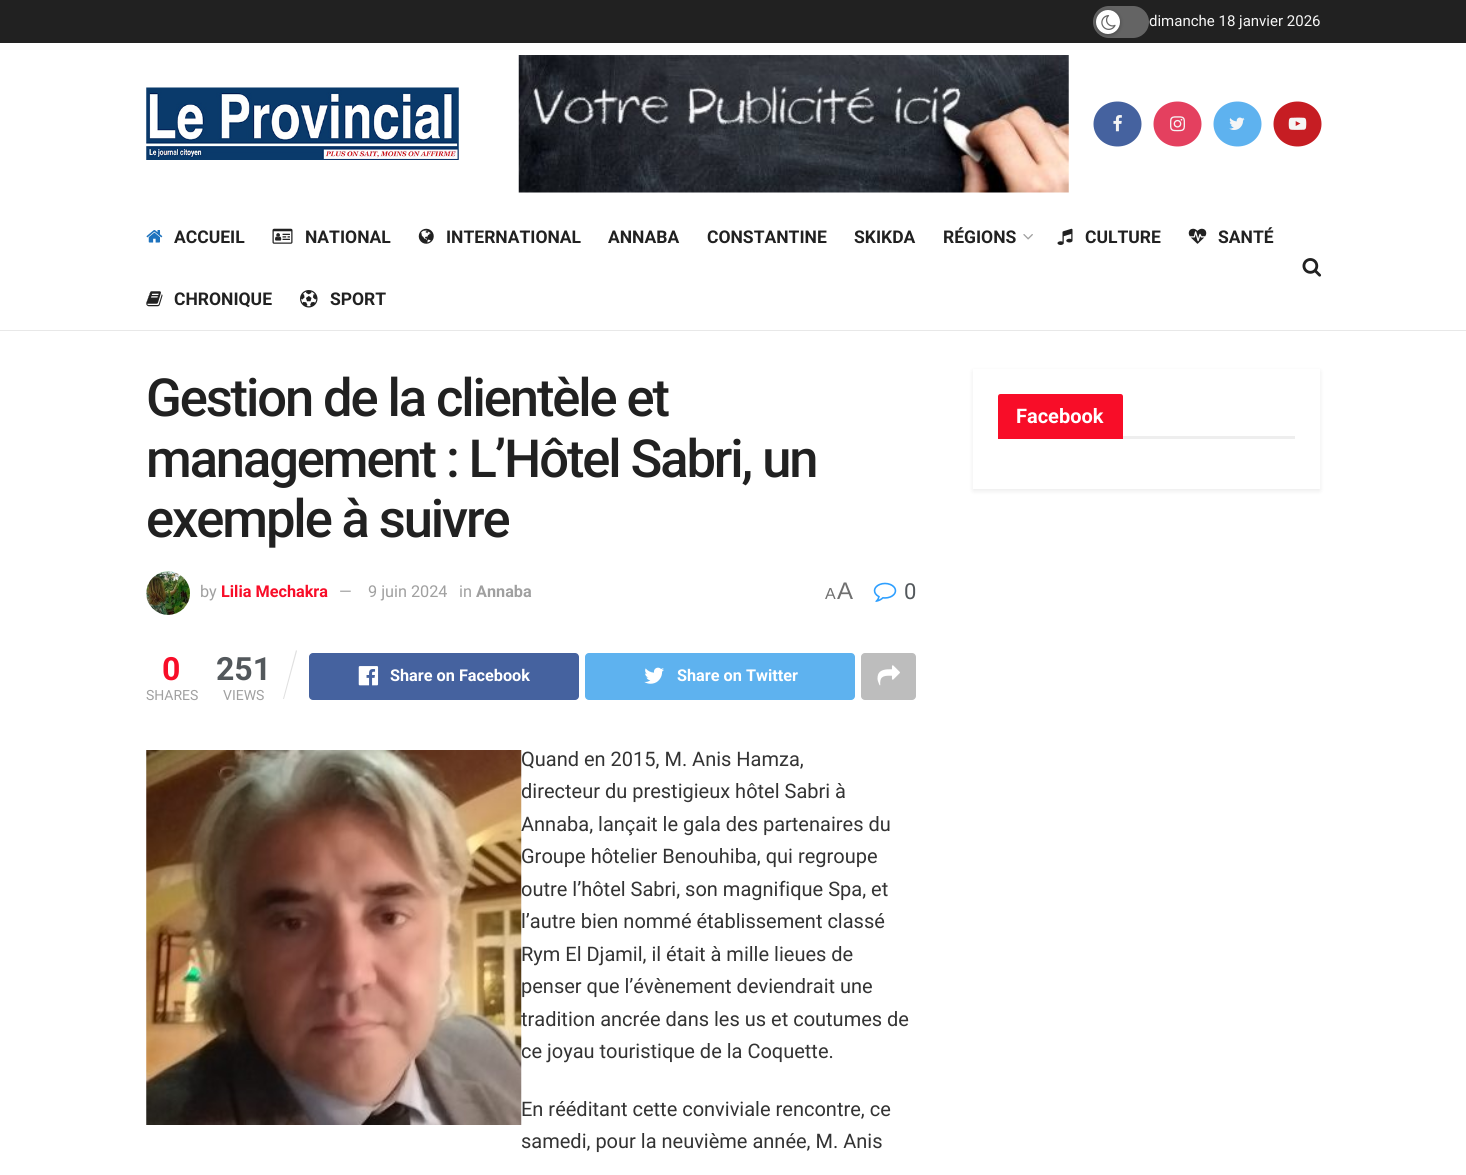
#include <cairo.h>
#include <math.h>
#include <stddef.h>


static void spaced_text(cairo_t *cr, double x, double y, const char *s, double letter, double word) {
    cairo_move_to(cr, x, y);
    while (*s) {
        char ch[5] = {0};
        int n = 0;
        do ch[n++] = *s++; while ((*s & 0xC0) == 0x80);
        cairo_show_text(cr, ch);
        cairo_rel_move_to(cr, letter + word * (*ch == ' '), 0);
    }
}

static void round_rect(cairo_t *cr, double x, double y, double w, double h, double r) {
    cairo_new_sub_path(cr);
    cairo_arc(cr, x + w - r, y + h - r, r, 0, M_PI / 2);
    cairo_arc(cr, x + r, y + h - r, r, M_PI / 2, M_PI);
    cairo_arc(cr, x + r, y + r, r, M_PI, 1.5 * M_PI);
    cairo_arc(cr, x + w - r, y + r, r, 1.5 * M_PI, 2 * M_PI);
    cairo_close_path(cr);
}

static void shadow(cairo_t *cr, double x, double y, double w, double h, double r, double blur, double alpha) {
    cairo_push_group_with_content(cr, CAIRO_CONTENT_ALPHA);
    cairo_set_operator(cr, CAIRO_OPERATOR_SOURCE);
    for (int i = 15; i >= -15 && fmin(w, h) + blur * i / 3 > 0; i -= 2) {
        double e = blur * i / 6;
        cairo_set_source_rgba(cr, 0, 0, 0, alpha * erfc((i - 1) / 8.5) / 2);
        round_rect(cr, x - e, y - e, w + 2 * e, h + 2 * e, fmax(0, fmin(r + e + blur * .6, fmin(w, h) / 2 + e)));
        cairo_fill(cr);
    }
    cairo_pattern_t *soft = cairo_pop_group(cr);
    cairo_mask(cr, soft);
    cairo_pattern_destroy(soft);
}

static void picture(cairo_t *cr, const char *path, double x, double y, double w, double h) {
    cairo_surface_t *image = cairo_image_surface_create_from_png(path);
    cairo_save(cr);
    cairo_set_source_surface(cr, image, x, y);
    cairo_rectangle(cr, x, y, w, h);
    cairo_fill(cr);
    cairo_restore(cr);
    cairo_surface_destroy(image);
}

int main(void) {
    cairo_surface_t *surface = cairo_image_surface_create(CAIRO_FORMAT_RGB24, 1466, 1175);
    cairo_t *cr = cairo_create(surface);
    cairo_font_options_t *options = cairo_font_options_create();
    cairo_font_options_set_hint_metrics(options, CAIRO_HINT_METRICS_OFF);
    cairo_font_options_set_hint_style(options, CAIRO_HINT_STYLE_NONE);
    cairo_set_font_options(cr, options);
    cairo_set_miter_limit(cr, 4);
    cairo_set_source_rgb(cr, 1, 1, 1);
    cairo_paint(cr);
    cairo_set_source_rgb(cr, 0.129, 0.129, 0.129);
    cairo_rectangle(cr, 0, 0, 1466, 43);
    cairo_fill(cr);
    cairo_set_source_rgb(cr, 0.392, 0.392, 0.392);
    round_rect(cr, 1093, 6, 56, 32, 16);
    cairo_fill(cr);
    cairo_set_source_rgb(cr, 0, 0, 0);
    shadow(cr, 1096, 11, 24, 24, 12, 2, 0.3);
    cairo_set_source_rgb(cr, 1, 1, 1);
    cairo_arc(cr, 1108, 22, 12, 0, 2 * M_PI);
    cairo_fill(cr);
    picture(cr, "img1.png", 1101, 15, 15, 15);
    cairo_select_font_face(cr, "Roboto", CAIRO_FONT_SLANT_NORMAL, CAIRO_FONT_WEIGHT_NORMAL);
    cairo_set_font_size(cr, 15);
    cairo_set_source_rgb(cr, 0.961, 0.961, 0.961);
    cairo_move_to(cr, 1149, 26);
    cairo_show_text(cr, "dimanche 18 janvier 2026");
    picture(cr, "img2.png", 146, 87, 313, 73);
    picture(cr, "img3.png", 518, 55, 551, 138);
    cairo_set_source_rgb(cr, 0.271, 0.384, 0.624);
    cairo_new_path(cr);
    cairo_move_to(cr, 1117.5, 101.5);
    cairo_curve_to(cr, 1131, 101.5, 1141.5, 111.5, 1141.5, 124);
    cairo_curve_to(cr, 1141.5, 136.5, 1131, 146.5, 1117.5, 146.5);
    cairo_curve_to(cr, 1104, 146.5, 1093.5, 136.5, 1093.5, 124);
    cairo_curve_to(cr, 1093.5, 111.5, 1104, 101.5, 1117.5, 101.5);
    cairo_close_path(cr);
    cairo_fill(cr);
    picture(cr, "img4.png", 1113, 115, 9, 17);
    cairo_set_source_rgb(cr, 0.894, 0.251, 0.373);
    cairo_new_path(cr);
    cairo_move_to(cr, 1177.5, 101.5);
    cairo_curve_to(cr, 1191, 101.5, 1201.5, 111.5, 1201.5, 124);
    cairo_curve_to(cr, 1201.5, 136.5, 1191, 146.5, 1177.5, 146.5);
    cairo_curve_to(cr, 1164, 146.5, 1153.5, 136.5, 1153.5, 124);
    cairo_curve_to(cr, 1153.5, 111.5, 1164, 101.5, 1177.5, 101.5);
    cairo_close_path(cr);
    cairo_fill(cr);
    picture(cr, "img5.png", 1170, 116, 15, 16);
    cairo_set_source_rgb(cr, 0.369, 0.698, 0.937);
    cairo_new_path(cr);
    cairo_move_to(cr, 1237.5, 101.5);
    cairo_curve_to(cr, 1251, 101.5, 1261.5, 111.5, 1261.5, 124);
    cairo_curve_to(cr, 1261.5, 136.5, 1251, 146.5, 1237.5, 146.5);
    cairo_curve_to(cr, 1224, 146.5, 1213.5, 136.5, 1213.5, 124);
    cairo_curve_to(cr, 1213.5, 111.5, 1224, 101.5, 1237.5, 101.5);
    cairo_close_path(cr);
    cairo_fill(cr);
    picture(cr, "img6.png", 1229, 117, 16, 13);
    cairo_set_source_rgb(cr, 0.776, 0.114, 0.137);
    cairo_new_path(cr);
    cairo_move_to(cr, 1297.5, 101.5);
    cairo_curve_to(cr, 1311, 101.5, 1321.5, 111.5, 1321.5, 124);
    cairo_curve_to(cr, 1321.5, 136.5, 1311, 146.5, 1297.5, 146.5);
    cairo_curve_to(cr, 1284, 146.5, 1273.5, 136.5, 1273.5, 124);
    cairo_curve_to(cr, 1273.5, 111.5, 1284, 101.5, 1297.5, 101.5);
    cairo_close_path(cr);
    cairo_fill(cr);
    picture(cr, "img7.png", 1288, 117, 19, 13);
    cairo_set_source_rgb(cr, 0.91, 0.91, 0.91);
    cairo_rectangle(cr, 0, 330, 1466, 1);
    cairo_fill(cr);
    picture(cr, "img8.png", 146, 230, 17, 13);
    cairo_select_font_face(cr, "Roboto", CAIRO_FONT_SLANT_NORMAL, CAIRO_FONT_WEIGHT_BOLD);
    cairo_set_font_size(cr, 17.5);
    cairo_set_source_rgb(cr, 0.129, 0.129, 0.129);
    cairo_move_to(cr, 174, 243);
    cairo_show_text(cr, "ACCUEIL");
    picture(cr, "img9.png", 272, 228, 21, 16);
    cairo_move_to(cr, 305, 243);
    cairo_show_text(cr, "NATIONAL");
    picture(cr, "img10.png", 418, 228, 16, 16);
    cairo_move_to(cr, 446, 243);
    cairo_show_text(cr, "INTERNATIONAL");
    cairo_move_to(cr, 608, 243);
    cairo_show_text(cr, "ANNABA");
    cairo_move_to(cr, 707, 243);
    cairo_show_text(cr, "CONSTANTINE");
    cairo_move_to(cr, 854, 243);
    cairo_show_text(cr, "SKIKDA");
    cairo_move_to(cr, 943, 243);
    cairo_show_text(cr, "RÉGIONS");
    picture(cr, "img11.png", 1023, 234, 10, 6);
    picture(cr, "img12.png", 1057, 228, 16, 17);
    cairo_move_to(cr, 1085, 243);
    cairo_show_text(cr, "CULTURE");
    picture(cr, "img13.png", 1188, 228, 19, 16);
    cairo_move_to(cr, 1218, 243);
    cairo_show_text(cr, "SANTÉ");
    picture(cr, "img14.png", 146, 291, 17, 16);
    cairo_move_to(cr, 174, 305);
    cairo_show_text(cr, "CHRONIQUE");
    picture(cr, "img15.png", 300, 290, 18, 18);
    cairo_move_to(cr, 330, 305);
    cairo_show_text(cr, "SPORT");
    picture(cr, "img16.png", 1302, 258, 20, 19);
    cairo_select_font_face(cr, "Roboto Medium", CAIRO_FONT_SLANT_NORMAL, CAIRO_FONT_WEIGHT_NORMAL);
    cairo_set_font_size(cr, 52.5);
    spaced_text(cr, 146, 416, "Gestion de la clientèle et", -2.1, 0);
    spaced_text(cr, 146, 477, "management : L’Hôtel Sabri, un", -2.1, 0);
    spaced_text(cr, 146, 537, "exemple à suivre", -2.1, 0);
    picture(cr, "img17.png", 146, 571, 44, 44);
    cairo_select_font_face(cr, "Roboto", CAIRO_FONT_SLANT_NORMAL, CAIRO_FONT_WEIGHT_NORMAL);
    cairo_set_font_size(cr, 16.25);
    cairo_set_source_rgb(cr, 0.627, 0.627, 0.627);
    cairo_move_to(cr, 200, 597);
    cairo_show_text(cr, "by");
    cairo_select_font_face(cr, "Roboto", CAIRO_FONT_SLANT_NORMAL, CAIRO_FONT_WEIGHT_BOLD);
    cairo_set_source_rgb(cr, 0.969, 0.051, 0.157);
    cairo_move_to(cr, 221, 597);
    cairo_show_text(cr, "Lilia Mechakra");
    cairo_select_font_face(cr, "Roboto", CAIRO_FONT_SLANT_NORMAL, CAIRO_FONT_WEIGHT_NORMAL);
    cairo_set_source_rgb(cr, 0.627, 0.627, 0.627);
    cairo_move_to(cr, 339, 597);
    cairo_show_text(cr, "—");
    cairo_move_to(cr, 368, 597);
    cairo_show_text(cr, "9 juin 2024");
    cairo_move_to(cr, 459, 597);
    cairo_show_text(cr, "in");
    cairo_select_font_face(cr, "Roboto", CAIRO_FONT_SLANT_NORMAL, CAIRO_FONT_WEIGHT_BOLD);
    cairo_move_to(cr, 476, 597);
    cairo_show_text(cr, "Annaba");
    cairo_select_font_face(cr, "Liberation Sans", CAIRO_FONT_SLANT_NORMAL, CAIRO_FONT_WEIGHT_NORMAL);
    cairo_set_font_size(cr, 16);
    cairo_set_source_rgb(cr, 0.439, 0.439, 0.439);
    cairo_move_to(cr, 825, 599);
    cairo_show_text(cr, "A");
    cairo_set_font_size(cr, 24);
    cairo_move_to(cr, 837, 599);
    cairo_show_text(cr, "A");
    picture(cr, "img18.png", 873, 582, 24, 20);
    cairo_select_font_face(cr, "Roboto", CAIRO_FONT_SLANT_NORMAL, CAIRO_FONT_WEIGHT_NORMAL);
    cairo_set_font_size(cr, 22);
    cairo_set_source_rgb(cr, 0.325, 0.345, 0.361);
    cairo_move_to(cr, 904, 599);
    cairo_show_text(cr, "0");
    cairo_select_font_face(cr, "Roboto", CAIRO_FONT_SLANT_NORMAL, CAIRO_FONT_WEIGHT_BOLD);
    cairo_set_font_size(cr, 32);
    cairo_set_source_rgb(cr, 0.969, 0.051, 0.157);
    cairo_move_to(cr, 162, 680);
    cairo_show_text(cr, "0");
    cairo_select_font_face(cr, "Roboto", CAIRO_FONT_SLANT_NORMAL, CAIRO_FONT_WEIGHT_NORMAL);
    cairo_set_font_size(cr, 14);
    cairo_set_source_rgb(cr, 0.627, 0.627, 0.627);
    cairo_move_to(cr, 146, 700);
    cairo_show_text(cr, "SHARES");
    cairo_select_font_face(cr, "Roboto", CAIRO_FONT_SLANT_NORMAL, CAIRO_FONT_WEIGHT_BOLD);
    cairo_set_font_size(cr, 32);
    cairo_set_source_rgb(cr, 0.325, 0.345, 0.361);
    cairo_move_to(cr, 216, 680);
    cairo_show_text(cr, "251");
    cairo_set_source_rgb(cr, 0.878, 0.878, 0.878);
    cairo_new_path(cr);
    cairo_move_to(cr, 296, 650);
    cairo_line_to(cr, 297, 651);
    cairo_line_to(cr, 284, 699);
    cairo_line_to(cr, 283, 699);
    cairo_close_path(cr);
    cairo_fill(cr);
    cairo_select_font_face(cr, "Roboto", CAIRO_FONT_SLANT_NORMAL, CAIRO_FONT_WEIGHT_NORMAL);
    cairo_set_font_size(cr, 14);
    cairo_set_source_rgb(cr, 0.627, 0.627, 0.627);
    cairo_move_to(cr, 223, 700);
    cairo_show_text(cr, "VIEWS");
    cairo_set_source_rgb(cr, 0.271, 0.384, 0.624);
    round_rect(cr, 309, 653, 270, 47, 4);
    cairo_fill(cr);
    picture(cr, "img19.png", 358, 666, 21, 20);
    cairo_select_font_face(cr, "Roboto", CAIRO_FONT_SLANT_NORMAL, CAIRO_FONT_WEIGHT_BOLD);
    cairo_set_font_size(cr, 16.25);
    cairo_set_source_rgb(cr, 1, 1, 1);
    cairo_move_to(cr, 390, 681);
    cairo_show_text(cr, "Share on Facebook");
    cairo_set_source_rgb(cr, 0.369, 0.698, 0.937);
    round_rect(cr, 585, 653, 270, 47, 4);
    cairo_fill(cr);
    picture(cr, "img20.png", 644, 667, 20, 17);
    cairo_set_source_rgb(cr, 1, 1, 1);
    cairo_move_to(cr, 677, 681);
    cairo_show_text(cr, "Share on Twitter");
    cairo_set_source_rgb(cr, 0.741, 0.741, 0.741);
    round_rect(cr, 861, 653, 55, 47, 4);
    cairo_fill(cr);
    picture(cr, "img21.png", 877, 665, 23, 21);
    picture(cr, "img22.png", 146, 750, 376, 375);
    cairo_select_font_face(cr, "Roboto", CAIRO_FONT_SLANT_NORMAL, CAIRO_FONT_WEIGHT_NORMAL);
    cairo_set_font_size(cr, 20);
    cairo_set_source_rgb(cr, 0.2, 0.2, 0.2);
    cairo_move_to(cr, 521, 766);
    cairo_show_text(cr, "Quand en 2015, M. Anis Hamza,");
    cairo_move_to(cr, 521, 798);
    cairo_show_text(cr, "directeur du prestigieux hôtel Sabri à");
    cairo_move_to(cr, 521, 831);
    cairo_show_text(cr, "Annaba, lançait le gala des partenaires du");
    cairo_move_to(cr, 521, 863);
    cairo_show_text(cr, "Groupe hôtelier Benouhiba, qui regroupe");
    cairo_move_to(cr, 521, 896);
    cairo_show_text(cr, "outre l’hôtel Sabri, son magnifique Spa, et");
    cairo_move_to(cr, 521, 928);
    cairo_show_text(cr, "l’autre bien nommé établissement classé");
    cairo_move_to(cr, 521, 961);
    cairo_show_text(cr, "Rym El Djamil, il était à mille lieues de");
    cairo_move_to(cr, 521, 993);
    cairo_show_text(cr, "penser que l’évènement deviendrait une");
    cairo_move_to(cr, 521, 1026);
    cairo_show_text(cr, "tradition ancrée dans les us et coutumes de");
    cairo_move_to(cr, 521, 1058);
    cairo_show_text(cr, "ce joyau touristique de la Coquette.");
    cairo_move_to(cr, 521, 1116);
    cairo_show_text(cr, "En rééditant cette conviviale rencontre, ce");
    cairo_move_to(cr, 521, 1148);
    cairo_show_text(cr, "samedi, pour la neuvième année, M. Anis");
    cairo_set_source_rgb(cr, 0, 0, 0);
    shadow(cr, 973, 371, 347, 120, 0, 2.5, 0.08);
    cairo_set_source_rgb(cr, 1, 1, 1);
    cairo_rectangle(cr, 973, 369, 347, 120);
    cairo_fill(cr);
    cairo_set_source_rgb(cr, 0.933, 0.933, 0.933);
    cairo_rectangle(cr, 1123, 436, 172, 3);
    cairo_fill(cr);
    cairo_set_source_rgb(cr, 0.969, 0.051, 0.157);
    cairo_new_path(cr);
    cairo_move_to(cr, 1000.5, 394);
    cairo_line_to(cr, 1120.5, 394);
    cairo_curve_to(cr, 1122, 394, 1123, 395, 1123, 396.5);
    cairo_line_to(cr, 1123, 439);
    cairo_line_to(cr, 998, 439);
    cairo_line_to(cr, 998, 396.5);
    cairo_curve_to(cr, 998, 395, 999, 394, 1000.5, 394);
    cairo_close_path(cr);
    cairo_fill(cr);
    cairo_select_font_face(cr, "Roboto", CAIRO_FONT_SLANT_NORMAL, CAIRO_FONT_WEIGHT_BOLD);
    cairo_set_source_rgb(cr, 1, 1, 1);
    cairo_move_to(cr, 1016, 423);
    cairo_show_text(cr, "Facebook");
    cairo_surface_write_to_png(surface, "page.png");
    cairo_font_options_destroy(options);
    cairo_destroy(cr);
    cairo_surface_destroy(surface);
    return 0;
}
